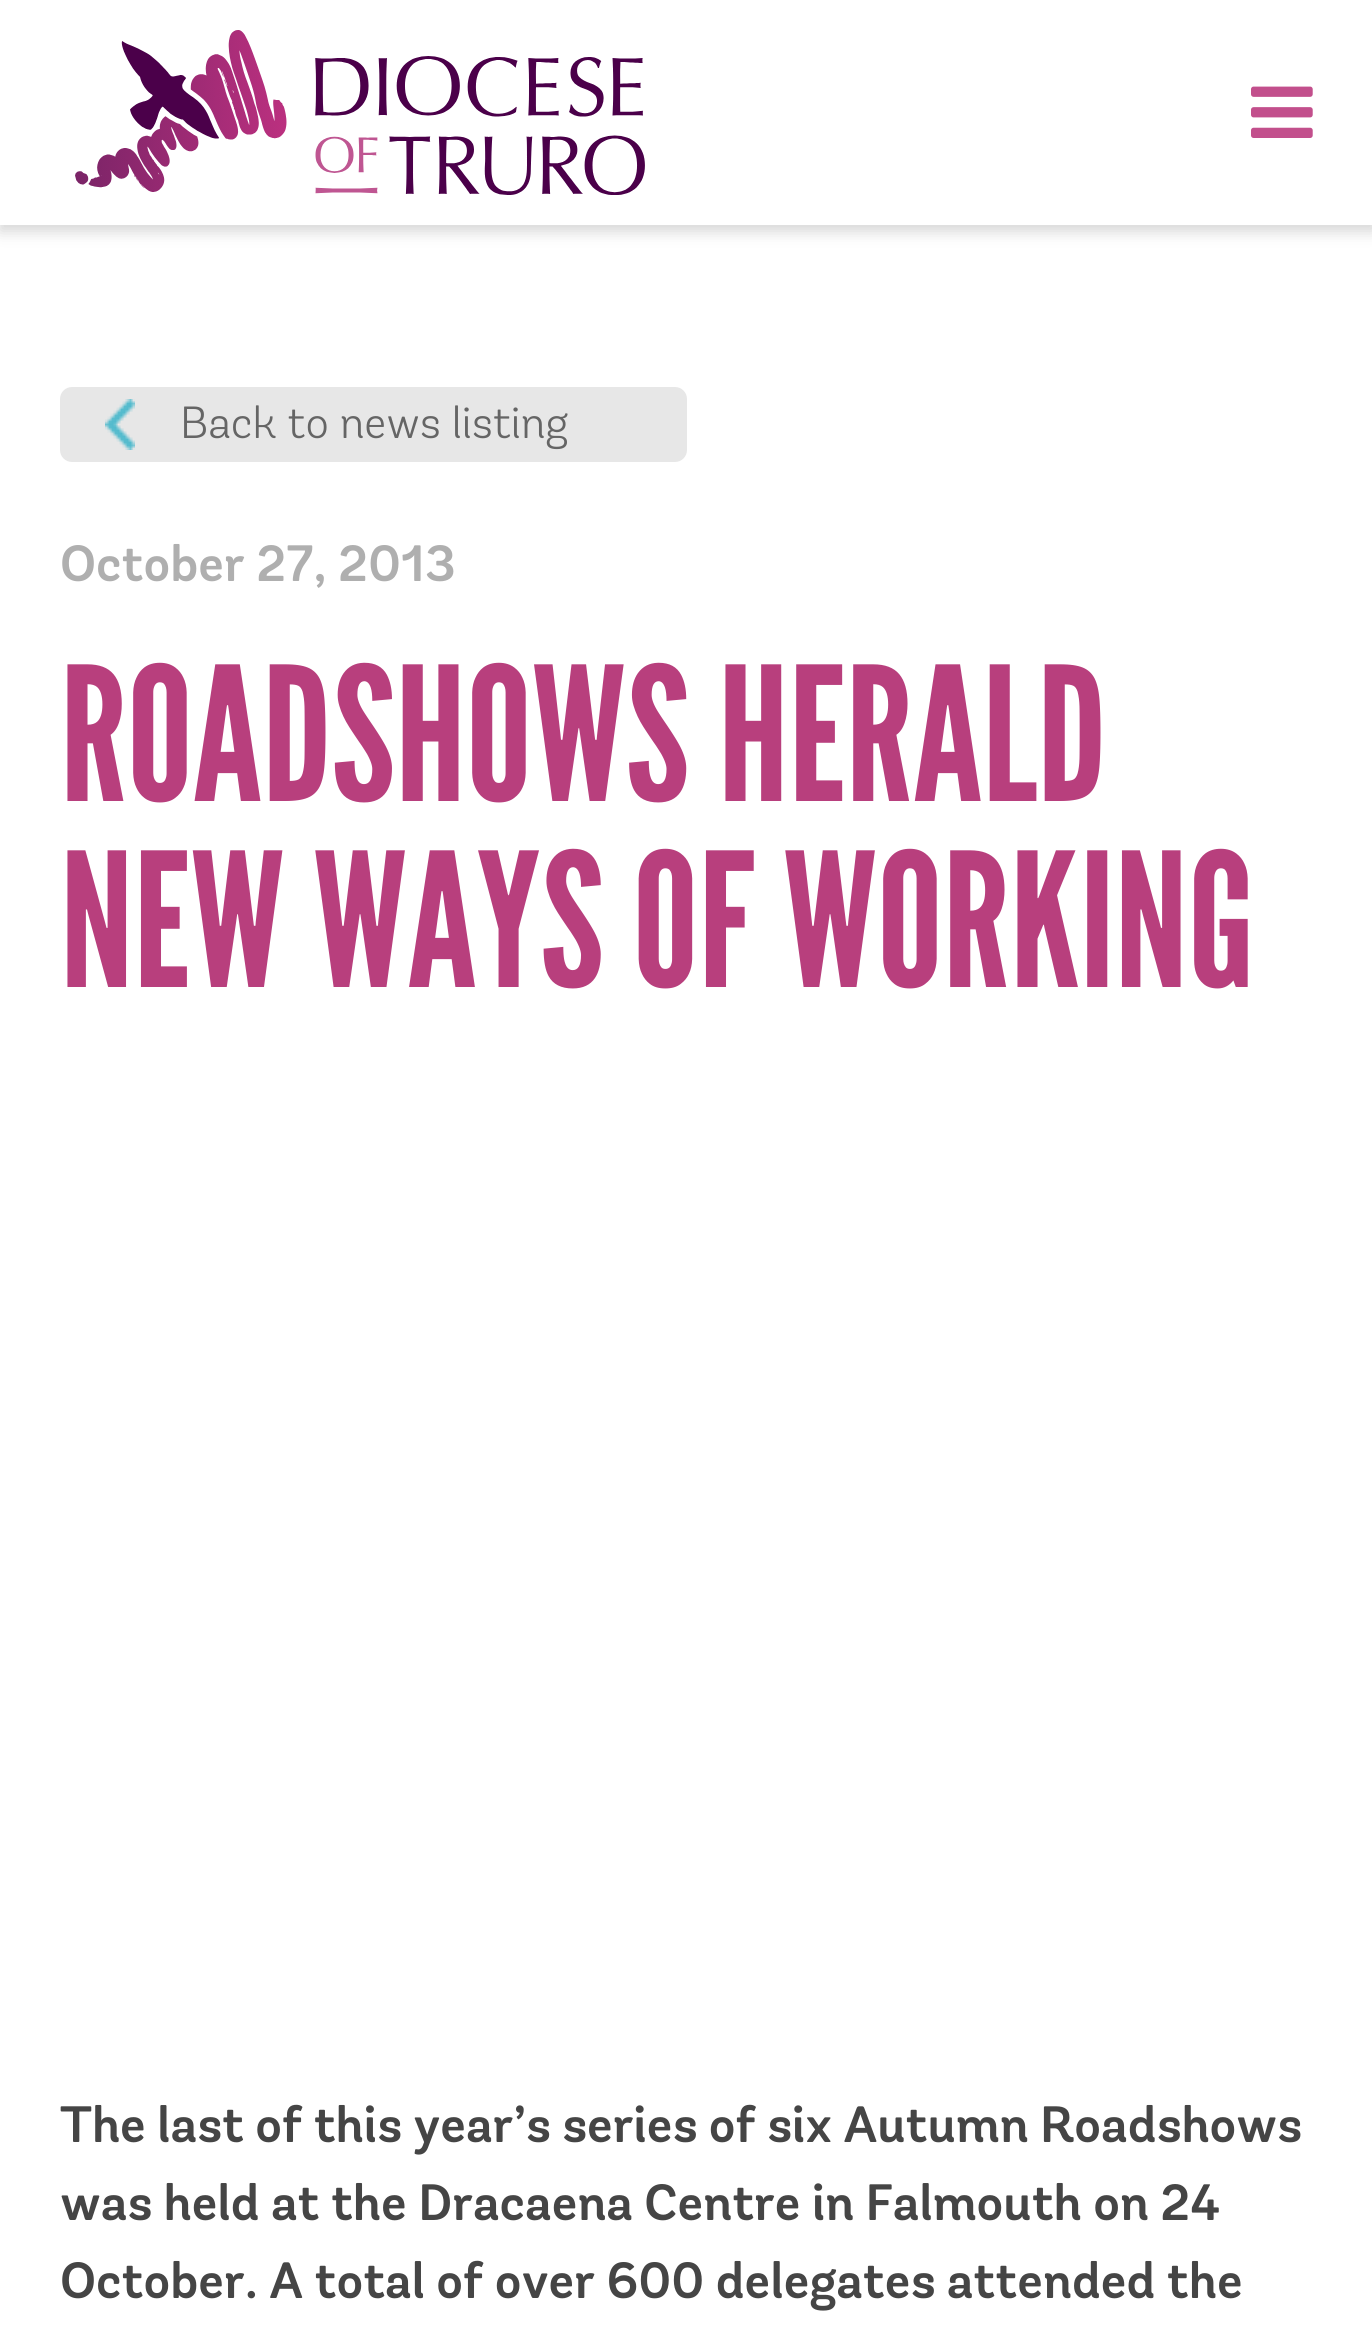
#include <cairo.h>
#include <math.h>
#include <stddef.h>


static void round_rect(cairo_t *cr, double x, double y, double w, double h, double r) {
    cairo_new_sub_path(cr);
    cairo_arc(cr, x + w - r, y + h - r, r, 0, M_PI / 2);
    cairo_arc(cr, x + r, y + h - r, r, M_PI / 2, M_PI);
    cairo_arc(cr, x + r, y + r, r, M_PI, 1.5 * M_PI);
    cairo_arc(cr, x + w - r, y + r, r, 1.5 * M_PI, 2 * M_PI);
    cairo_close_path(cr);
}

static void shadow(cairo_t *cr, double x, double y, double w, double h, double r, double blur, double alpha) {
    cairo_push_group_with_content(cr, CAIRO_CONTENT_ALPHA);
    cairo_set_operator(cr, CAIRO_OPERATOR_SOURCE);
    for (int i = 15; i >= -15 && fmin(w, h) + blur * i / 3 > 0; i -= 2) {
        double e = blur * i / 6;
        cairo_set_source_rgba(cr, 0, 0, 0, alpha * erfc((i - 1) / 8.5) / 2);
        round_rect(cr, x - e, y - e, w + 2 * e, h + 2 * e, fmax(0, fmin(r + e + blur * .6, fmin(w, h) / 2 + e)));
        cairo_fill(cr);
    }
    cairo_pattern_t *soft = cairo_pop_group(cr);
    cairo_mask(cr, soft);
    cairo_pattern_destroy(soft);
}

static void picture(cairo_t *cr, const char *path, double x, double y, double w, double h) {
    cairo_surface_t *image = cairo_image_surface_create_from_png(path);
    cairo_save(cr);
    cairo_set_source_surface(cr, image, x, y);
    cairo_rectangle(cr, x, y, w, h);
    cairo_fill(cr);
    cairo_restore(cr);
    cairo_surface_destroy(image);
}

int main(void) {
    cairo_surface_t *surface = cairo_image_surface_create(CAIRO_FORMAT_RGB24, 1372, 2350);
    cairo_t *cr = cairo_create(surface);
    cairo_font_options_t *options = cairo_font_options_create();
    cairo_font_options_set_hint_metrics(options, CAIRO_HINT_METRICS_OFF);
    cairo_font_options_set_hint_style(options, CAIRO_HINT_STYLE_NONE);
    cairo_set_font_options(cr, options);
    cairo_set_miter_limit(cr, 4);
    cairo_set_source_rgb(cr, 1, 1, 1);
    cairo_paint(cr);
    cairo_set_source_rgb(cr, 0.659, 0.659, 0.659);
    shadow(cr, 0, 6, 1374, 225, 0, 7.5, 0.5);
    cairo_set_source_rgb(cr, 1, 1, 1);
    cairo_rectangle(cr, 0, 0, 1372, 225);
    cairo_fill(cr);
    picture(cr, "img1.png", 75, 30, 570, 165);
    picture(cr, "img2.png", 1251, 86, 62, 52);
    cairo_set_source_rgb(cr, 0.906, 0.906, 0.906);
    round_rect(cr, 60, 387, 627, 75, 12);
    cairo_fill(cr);
    picture(cr, "img3.png", 105, 399, 30, 51);
    cairo_select_font_face(cr, "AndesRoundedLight", CAIRO_FONT_SLANT_NORMAL, CAIRO_FONT_WEIGHT_NORMAL);
    cairo_set_font_size(cr, 45);
    cairo_set_source_rgb(cr, 0.396, 0.396, 0.396);
    cairo_move_to(cr, 180, 438);
    cairo_show_text(cr, "Back to news listing");
    cairo_select_font_face(cr, "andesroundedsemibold", CAIRO_FONT_SLANT_NORMAL, CAIRO_FONT_WEIGHT_NORMAL);
    cairo_set_font_size(cr, 51);
    cairo_set_source_rgb(cr, 0.686, 0.686, 0.686);
    cairo_move_to(cr, 60, 581);
    cairo_show_text(cr, "October 27, 2013");
    cairo_select_font_face(cr, "League Gothic", CAIRO_FONT_SLANT_NORMAL, CAIRO_FONT_WEIGHT_NORMAL);
    cairo_set_font_size(cr, 186);
    cairo_set_source_rgb(cr, 0.722, 0.247, 0.49);
    cairo_move_to(cr, 60, 801);
    cairo_show_text(cr, "ROADSHOWS HERALD");
    cairo_move_to(cr, 60, 987);
    cairo_show_text(cr, "NEW WAYS OF WORKING");
    cairo_select_font_face(cr, "andesroundedsemibold", CAIRO_FONT_SLANT_NORMAL, CAIRO_FONT_WEIGHT_NORMAL);
    cairo_set_font_size(cr, 51);
    cairo_set_source_rgb(cr, 0.271, 0.271, 0.271);
    cairo_move_to(cr, 60, 2142);
    cairo_show_text(cr, "The last of this year’s series of six Autumn Roadshows");
    cairo_move_to(cr, 60, 2220);
    cairo_show_text(cr, "was held at the Dracaena Centre in Falmouth on 24");
    cairo_move_to(cr, 60, 2298);
    cairo_show_text(cr, "October. A total of over 600 delegates attended the");
    cairo_surface_write_to_png(surface, "page.png");
    cairo_font_options_destroy(options);
    cairo_destroy(cr);
    cairo_surface_destroy(surface);
    return 0;
}
